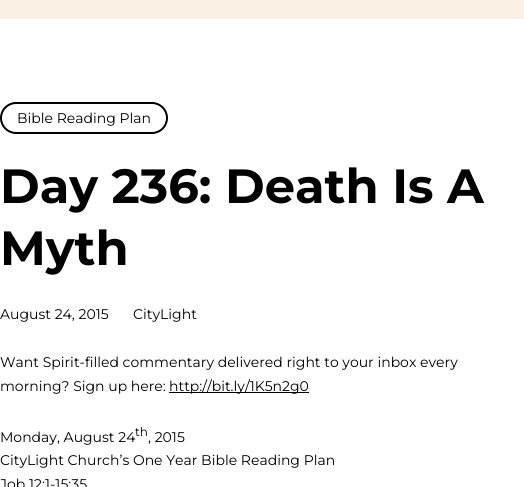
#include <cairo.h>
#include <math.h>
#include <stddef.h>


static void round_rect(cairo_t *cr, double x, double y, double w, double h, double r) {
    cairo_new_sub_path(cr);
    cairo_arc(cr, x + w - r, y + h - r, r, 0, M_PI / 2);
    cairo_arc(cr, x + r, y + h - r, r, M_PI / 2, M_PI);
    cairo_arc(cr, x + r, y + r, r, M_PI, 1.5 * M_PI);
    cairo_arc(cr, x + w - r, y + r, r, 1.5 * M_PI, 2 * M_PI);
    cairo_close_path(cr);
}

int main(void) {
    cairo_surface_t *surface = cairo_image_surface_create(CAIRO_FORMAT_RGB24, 524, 487);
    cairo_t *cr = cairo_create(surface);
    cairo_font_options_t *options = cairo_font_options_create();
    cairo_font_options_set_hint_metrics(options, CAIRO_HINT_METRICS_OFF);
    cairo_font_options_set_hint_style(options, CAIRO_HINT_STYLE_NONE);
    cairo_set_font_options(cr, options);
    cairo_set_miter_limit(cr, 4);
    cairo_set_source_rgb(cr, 1, 1, 1);
    cairo_paint(cr);
    cairo_set_source_rgb(cr, 0.98, 0.941, 0.894);
    cairo_rectangle(cr, 0, 0, 524, 19);
    cairo_fill(cr);
    round_rect(cr, 1, 103, 166, 30, 15);
    cairo_set_source_rgb(cr, 0, 0, 0);
    cairo_stroke(cr);
    cairo_select_font_face(cr, "Montserrat Thin", CAIRO_FONT_SLANT_NORMAL, CAIRO_FONT_WEIGHT_NORMAL);
    cairo_set_font_size(cr, 14);
    cairo_move_to(cr, 17, 123);
    cairo_show_text(cr, "Bible Reading Plan");
    cairo_select_font_face(cr, "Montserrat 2 Thin", CAIRO_FONT_SLANT_NORMAL, CAIRO_FONT_WEIGHT_NORMAL);
    cairo_set_font_size(cr, 48);
    cairo_move_to(cr, 0, 203);
    cairo_show_text(cr, "Day 236: Death Is A");
    cairo_move_to(cr, 0, 265);
    cairo_show_text(cr, "Myth");
    cairo_select_font_face(cr, "Montserrat Thin", CAIRO_FONT_SLANT_NORMAL, CAIRO_FONT_WEIGHT_NORMAL);
    cairo_set_font_size(cr, 14);
    cairo_move_to(cr, 0, 319);
    cairo_show_text(cr, "August 24, 2015");
    cairo_move_to(cr, 133, 319);
    cairo_show_text(cr, "CityLight");
    cairo_move_to(cr, 0, 367);
    cairo_show_text(cr, "Want Spirit-filled commentary delivered right to your inbox every");
    cairo_move_to(cr, 0, 391);
    cairo_show_text(cr, "morning? Sign up here:");
    cairo_rectangle(cr, 169, 392, 140, 1);
    cairo_fill(cr);
    cairo_move_to(cr, 169, 391);
    cairo_show_text(cr, "http://bit.ly/1K5n2g0");
    cairo_move_to(cr, 0, 442);
    cairo_show_text(cr, "Monday, August 24");
    cairo_set_font_size(cr, 12);
    cairo_move_to(cr, 135, 436);
    cairo_show_text(cr, "th");
    cairo_set_font_size(cr, 14);
    cairo_move_to(cr, 148, 442);
    cairo_show_text(cr, ", 2015");
    cairo_move_to(cr, 0, 465);
    cairo_show_text(cr, "CityLight Church’s One Year Bible Reading Plan");
    cairo_move_to(cr, 0, 489);
    cairo_show_text(cr, "Job 12:1-15:35");
    cairo_surface_write_to_png(surface, "page.png");
    cairo_font_options_destroy(options);
    cairo_destroy(cr);
    cairo_surface_destroy(surface);
    return 0;
}
